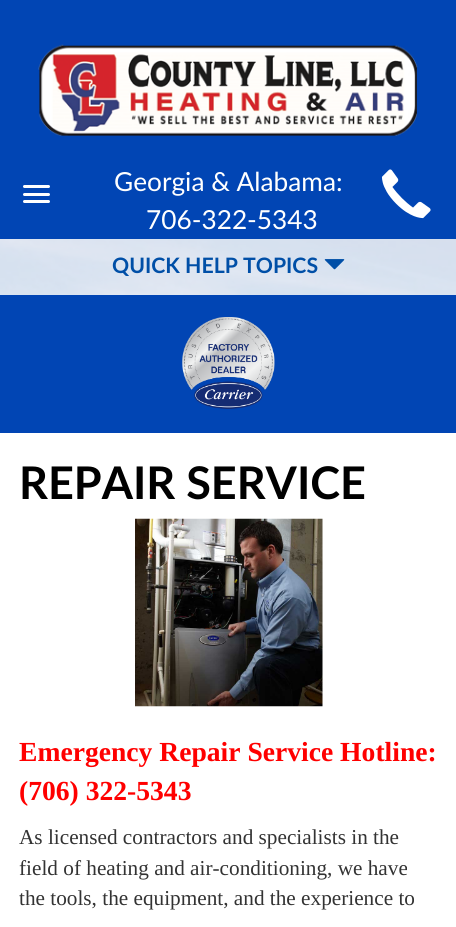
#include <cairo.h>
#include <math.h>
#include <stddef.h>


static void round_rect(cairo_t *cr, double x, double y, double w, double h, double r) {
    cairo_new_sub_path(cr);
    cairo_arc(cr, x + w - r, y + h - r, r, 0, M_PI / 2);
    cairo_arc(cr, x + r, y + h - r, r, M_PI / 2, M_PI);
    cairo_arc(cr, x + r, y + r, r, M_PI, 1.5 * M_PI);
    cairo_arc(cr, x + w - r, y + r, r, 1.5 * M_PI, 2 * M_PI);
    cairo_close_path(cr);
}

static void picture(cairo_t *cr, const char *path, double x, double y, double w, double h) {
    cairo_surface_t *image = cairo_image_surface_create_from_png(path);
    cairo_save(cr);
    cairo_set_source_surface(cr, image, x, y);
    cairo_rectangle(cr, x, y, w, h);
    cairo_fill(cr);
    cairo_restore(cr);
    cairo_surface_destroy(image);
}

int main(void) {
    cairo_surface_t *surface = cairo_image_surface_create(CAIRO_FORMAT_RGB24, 456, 927);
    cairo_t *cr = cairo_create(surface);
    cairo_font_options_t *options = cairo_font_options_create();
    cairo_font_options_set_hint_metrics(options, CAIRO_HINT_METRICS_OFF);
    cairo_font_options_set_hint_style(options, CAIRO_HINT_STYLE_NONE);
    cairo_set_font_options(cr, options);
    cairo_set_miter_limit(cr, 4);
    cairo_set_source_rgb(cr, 1, 1, 1);
    cairo_paint(cr);
    cairo_set_source_rgb(cr, 0.004, 0.271, 0.706);
    cairo_rectangle(cr, 0, 0, 456, 239);
    cairo_fill(cr);
    picture(cr, "img1.png", 38, 44, 380, 92);
    cairo_set_source_rgb(cr, 1, 1, 1);
    round_rect(cr, 23, 185, 27, 3, 1.5);
    cairo_fill(cr);
    round_rect(cr, 23, 193, 27, 3, 1.5);
    cairo_fill(cr);
    round_rect(cr, 23, 200, 27, 3, 1.5);
    cairo_fill(cr);
    cairo_select_font_face(cr, "Lato", CAIRO_FONT_SLANT_NORMAL, CAIRO_FONT_WEIGHT_NORMAL);
    cairo_set_font_size(cr, 26.25);
    cairo_move_to(cr, 114, 191);
    cairo_show_text(cr, "Georgia & Alabama:");
    cairo_move_to(cr, 146, 229);
    cairo_show_text(cr, "706-322-5343");
    picture(cr, "img2.png", 381, 169, 50, 50);
    picture(cr, "img3.png", 0, 239, 456, 56);
    cairo_set_source_rgba(cr, 1, 1, 1, 0.6);
    cairo_rectangle(cr, 0, 239, 456, 56);
    cairo_fill(cr);
    cairo_rectangle(cr, 0, 239, 456, 56);
    cairo_fill(cr);
    cairo_select_font_face(cr, "Lato", CAIRO_FONT_SLANT_NORMAL, CAIRO_FONT_WEIGHT_BOLD);
    cairo_set_font_size(cr, 21.25);
    cairo_set_source_rgb(cr, 0, 0.31, 0.655);
    cairo_move_to(cr, 112, 273);
    cairo_show_text(cr, "QUICK HELP TOPICS");
    picture(cr, "img4.png", 324, 259, 21, 11);
    cairo_set_source_rgb(cr, 0.004, 0.271, 0.706);
    cairo_rectangle(cr, 0, 295, 456, 138);
    cairo_fill(cr);
    picture(cr, "img5.png", 182, 317, 93, 92);
    cairo_set_font_size(cr, 45);
    cairo_set_source_rgb(cr, 0, 0, 0);
    cairo_move_to(cr, 19, 499);
    cairo_show_text(cr, "REPAIR SERVICE");
    picture(cr, "img6.png", 135, 518, 188, 189);
    cairo_select_font_face(cr, "Liberation Serif", CAIRO_FONT_SLANT_NORMAL, CAIRO_FONT_WEIGHT_BOLD);
    cairo_set_font_size(cr, 27.6);
    cairo_set_source_rgb(cr, 1, 0, 0);
    cairo_move_to(cr, 19, 761);
    cairo_show_text(cr, "Emergency Repair Service Hotline:");
    cairo_move_to(cr, 19, 800);
    cairo_show_text(cr, "(706) 322-5343");
    cairo_select_font_face(cr, "Liberation Serif", CAIRO_FONT_SLANT_NORMAL, CAIRO_FONT_WEIGHT_NORMAL);
    cairo_set_font_size(cr, 21.25);
    cairo_set_source_rgb(cr, 0.2, 0.2, 0.2);
    cairo_move_to(cr, 19, 844);
    cairo_show_text(cr, "As licensed contractors and specialists in the");
    cairo_move_to(cr, 19, 875);
    cairo_show_text(cr, "field of heating and air-conditioning, we have");
    cairo_move_to(cr, 19, 905);
    cairo_show_text(cr, "the tools, the equipment, and the experience to");
    cairo_surface_write_to_png(surface, "page.png");
    cairo_font_options_destroy(options);
    cairo_destroy(cr);
    cairo_surface_destroy(surface);
    return 0;
}
